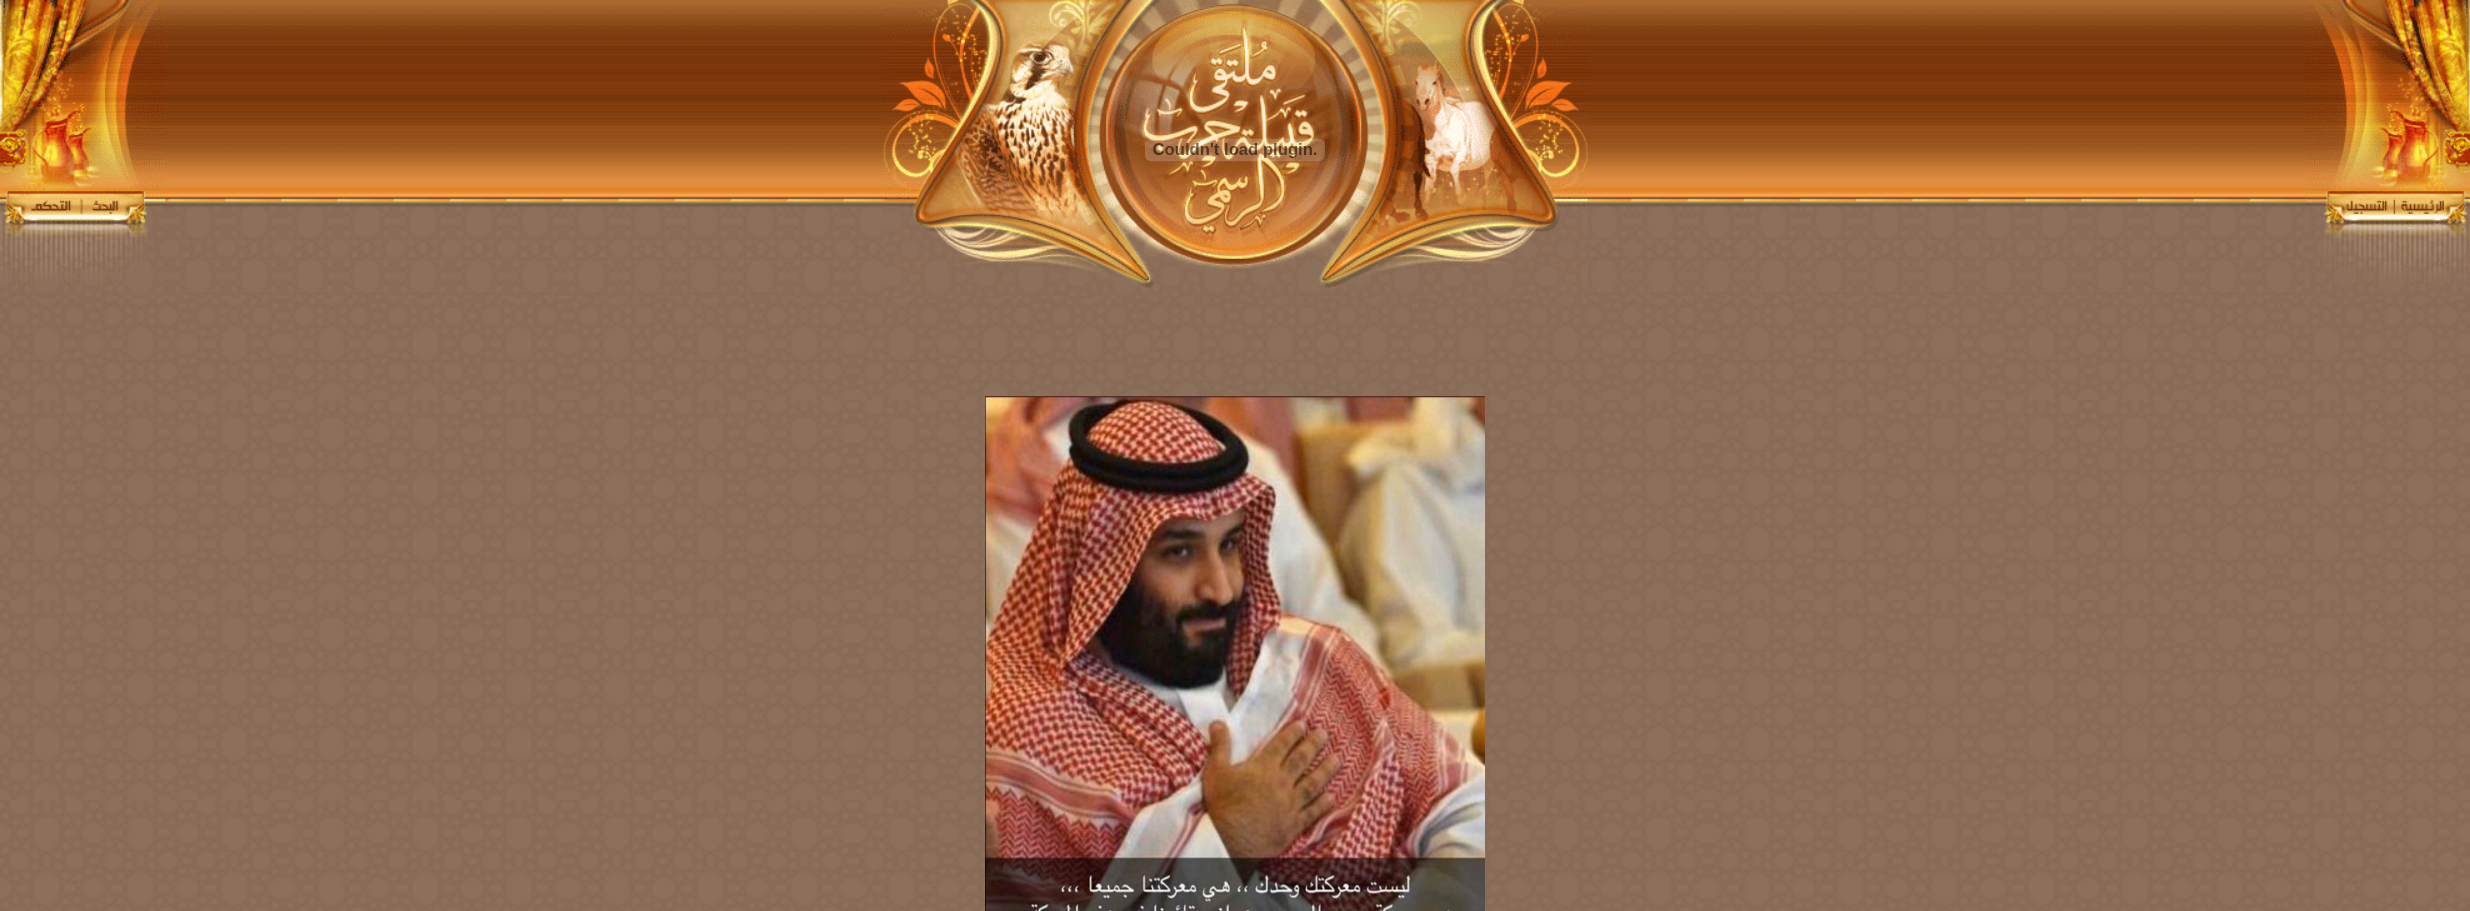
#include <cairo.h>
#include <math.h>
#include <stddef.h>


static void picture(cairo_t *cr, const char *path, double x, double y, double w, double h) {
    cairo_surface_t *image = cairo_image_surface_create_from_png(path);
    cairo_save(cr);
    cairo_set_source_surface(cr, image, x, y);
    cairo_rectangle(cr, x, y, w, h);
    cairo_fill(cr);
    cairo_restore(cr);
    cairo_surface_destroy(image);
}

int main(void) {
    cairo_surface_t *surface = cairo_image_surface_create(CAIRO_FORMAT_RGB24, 2470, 911);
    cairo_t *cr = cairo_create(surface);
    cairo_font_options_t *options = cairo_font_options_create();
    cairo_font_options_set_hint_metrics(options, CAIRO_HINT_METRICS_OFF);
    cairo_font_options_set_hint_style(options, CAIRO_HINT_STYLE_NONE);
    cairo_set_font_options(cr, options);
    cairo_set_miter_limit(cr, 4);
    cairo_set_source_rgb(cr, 1, 1, 1);
    cairo_paint(cr);
    picture(cr, "img1.png", 0, 298, 2470, 613);
    picture(cr, "img2.png", 0, 0, 2470, 299);
    picture(cr, "img3.png", 0, 0, 165, 299);
    picture(cr, "img4.png", 883, 0, 705, 299);
    picture(cr, "img5.png", 1145, 138, 180, 24);
    picture(cr, "img6.png", 2305, 0, 165, 299);
    picture(cr, "img7.png", 985, 396, 500, 515);
    cairo_surface_write_to_png(surface, "page.png");
    cairo_font_options_destroy(options);
    cairo_destroy(cr);
    cairo_surface_destroy(surface);
    return 0;
}
